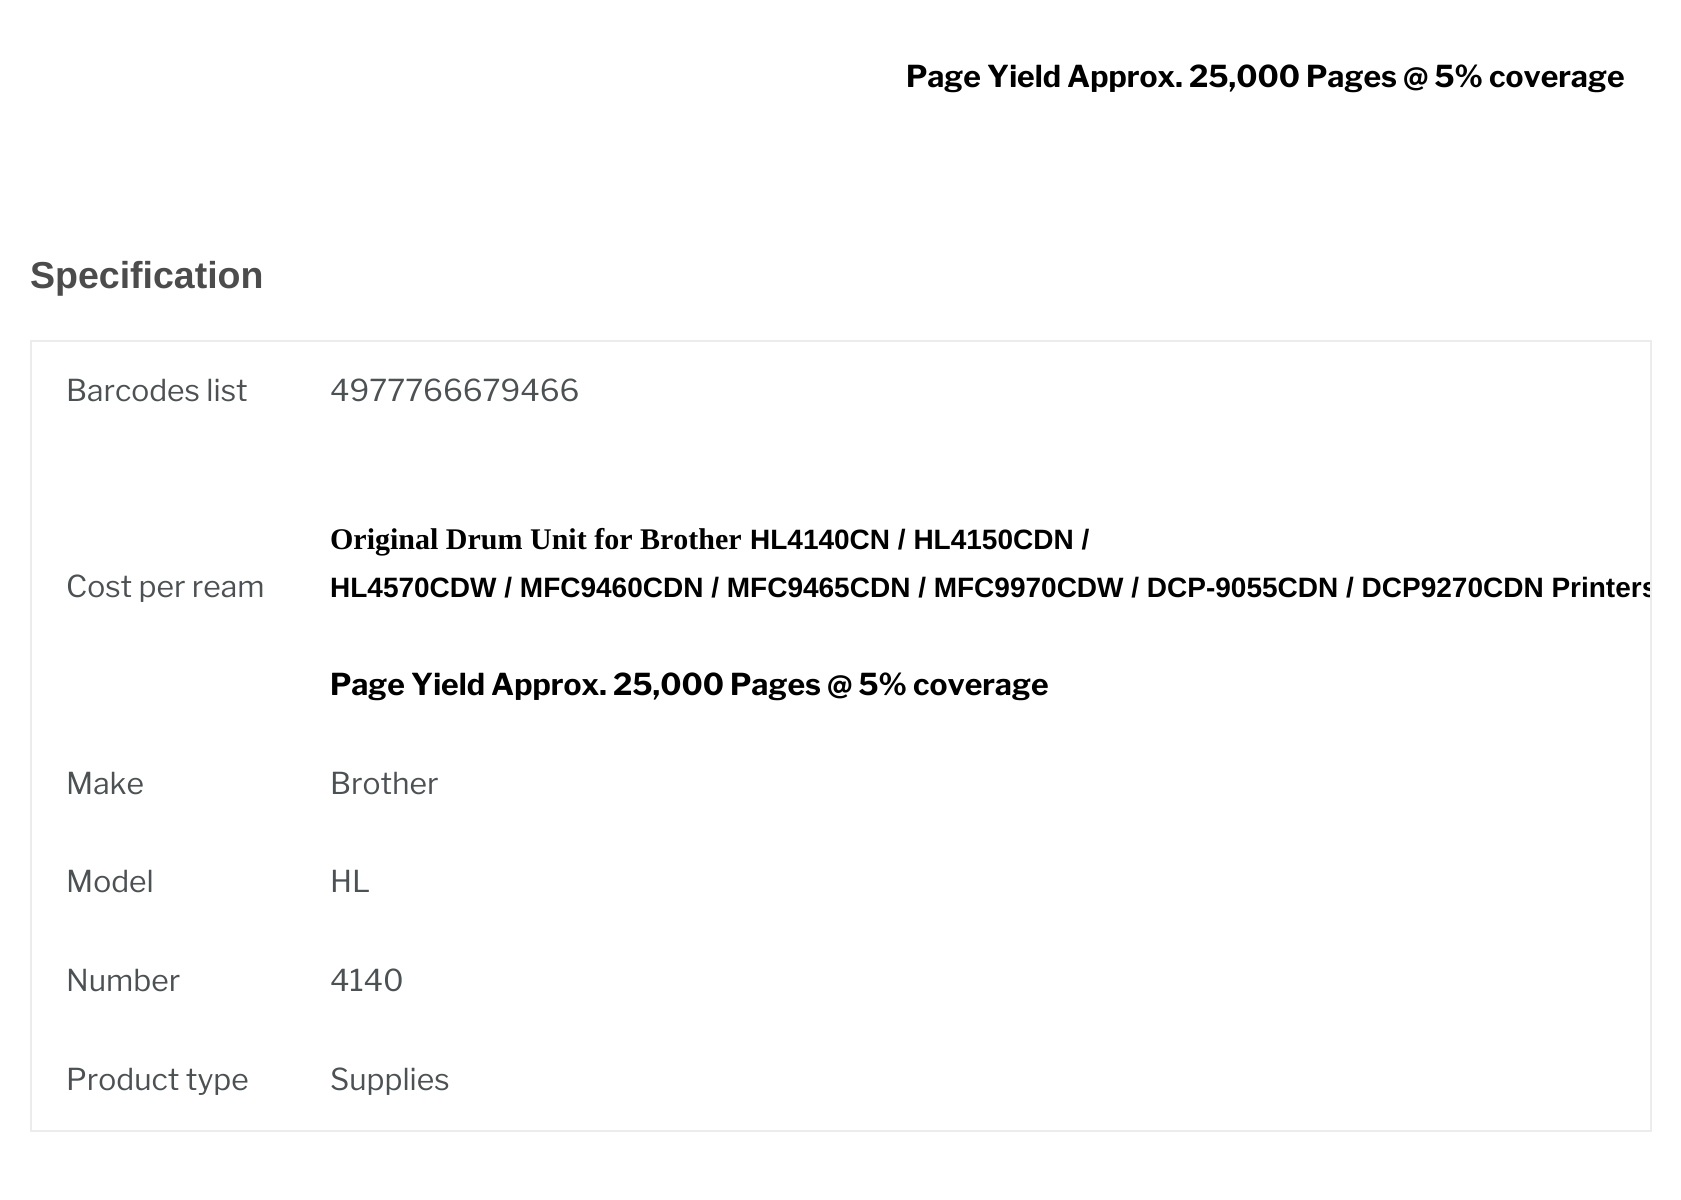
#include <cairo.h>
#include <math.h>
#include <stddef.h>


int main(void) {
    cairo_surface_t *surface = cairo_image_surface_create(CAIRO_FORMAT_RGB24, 1681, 1200);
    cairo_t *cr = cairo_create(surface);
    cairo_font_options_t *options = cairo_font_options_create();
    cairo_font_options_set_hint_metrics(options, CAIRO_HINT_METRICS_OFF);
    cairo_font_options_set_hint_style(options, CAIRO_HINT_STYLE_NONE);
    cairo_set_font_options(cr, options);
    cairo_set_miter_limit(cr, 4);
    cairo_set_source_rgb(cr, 1, 1, 1);
    cairo_paint(cr);
    cairo_select_font_face(cr, "Libre Franklin", CAIRO_FONT_SLANT_NORMAL, CAIRO_FONT_WEIGHT_BOLD);
    cairo_set_font_size(cr, 30);
    cairo_set_source_rgb(cr, 0, 0, 0);
    cairo_move_to(cr, 906, 87);
    cairo_show_text(cr, "Page Yield Approx. 25,000 Pages @ 5% coverage");
    cairo_select_font_face(cr, "Arimo", CAIRO_FONT_SLANT_NORMAL, CAIRO_FONT_WEIGHT_BOLD);
    cairo_set_font_size(cr, 37.5);
    cairo_set_source_rgb(cr, 0.298, 0.298, 0.298);
    cairo_move_to(cr, 30, 288);
    cairo_show_text(cr, "Specification");
    cairo_rectangle(cr, 31, 341, 1620, 790);
    cairo_set_source_rgb(cr, 0.922, 0.922, 0.922);
    cairo_stroke(cr);
    cairo_select_font_face(cr, "Libre Franklin", CAIRO_FONT_SLANT_NORMAL, CAIRO_FONT_WEIGHT_NORMAL);
    cairo_set_font_size(cr, 30);
    cairo_set_source_rgb(cr, 0.298, 0.318, 0.329);
    cairo_move_to(cr, 66, 401);
    cairo_show_text(cr, "Barcodes list");
    cairo_move_to(cr, 330, 401);
    cairo_show_text(cr, "4977766679466");
    cairo_move_to(cr, 66, 597);
    cairo_show_text(cr, "Cost per ream");
    cairo_select_font_face(cr, "Liberation Serif", CAIRO_FONT_SLANT_NORMAL, CAIRO_FONT_WEIGHT_BOLD);
    cairo_set_source_rgb(cr, 0, 0, 0);
    cairo_move_to(cr, 330, 549);
    cairo_show_text(cr, "Original Drum Unit for Brother");
    cairo_select_font_face(cr, "Liberation Sans", CAIRO_FONT_SLANT_NORMAL, CAIRO_FONT_WEIGHT_BOLD);
    cairo_set_font_size(cr, 28);
    cairo_move_to(cr, 750, 549);
    cairo_show_text(cr, "HL4140CN / HL4150CDN /");
    cairo_save(cr);
    cairo_rectangle(cr, 32, 342, 1618, 788);
    cairo_clip(cr);
    cairo_move_to(cr, 330, 597);
    cairo_show_text(cr, "HL4570CDW / MFC9460CDN / MFC9465CDN / MFC9970CDW / DCP-9055CDN / DCP9270CDN Printers");
    cairo_restore(cr);
    cairo_select_font_face(cr, "Libre Franklin", CAIRO_FONT_SLANT_NORMAL, CAIRO_FONT_WEIGHT_BOLD);
    cairo_set_font_size(cr, 30);
    cairo_move_to(cr, 330, 695);
    cairo_show_text(cr, "Page Yield Approx. 25,000 Pages @ 5% coverage");
    cairo_select_font_face(cr, "Libre Franklin", CAIRO_FONT_SLANT_NORMAL, CAIRO_FONT_WEIGHT_NORMAL);
    cairo_set_source_rgb(cr, 0.298, 0.318, 0.329);
    cairo_move_to(cr, 66, 794);
    cairo_show_text(cr, "Make");
    cairo_move_to(cr, 330, 794);
    cairo_show_text(cr, "Brother");
    cairo_move_to(cr, 66, 892);
    cairo_show_text(cr, "Model");
    cairo_move_to(cr, 330, 892);
    cairo_show_text(cr, "HL");
    cairo_move_to(cr, 66, 991);
    cairo_show_text(cr, "Number");
    cairo_move_to(cr, 330, 991);
    cairo_show_text(cr, "4140");
    cairo_move_to(cr, 66, 1090);
    cairo_show_text(cr, "Product type");
    cairo_move_to(cr, 330, 1090);
    cairo_show_text(cr, "Supplies");
    cairo_surface_write_to_png(surface, "page.png");
    cairo_font_options_destroy(options);
    cairo_destroy(cr);
    cairo_surface_destroy(surface);
    return 0;
}
